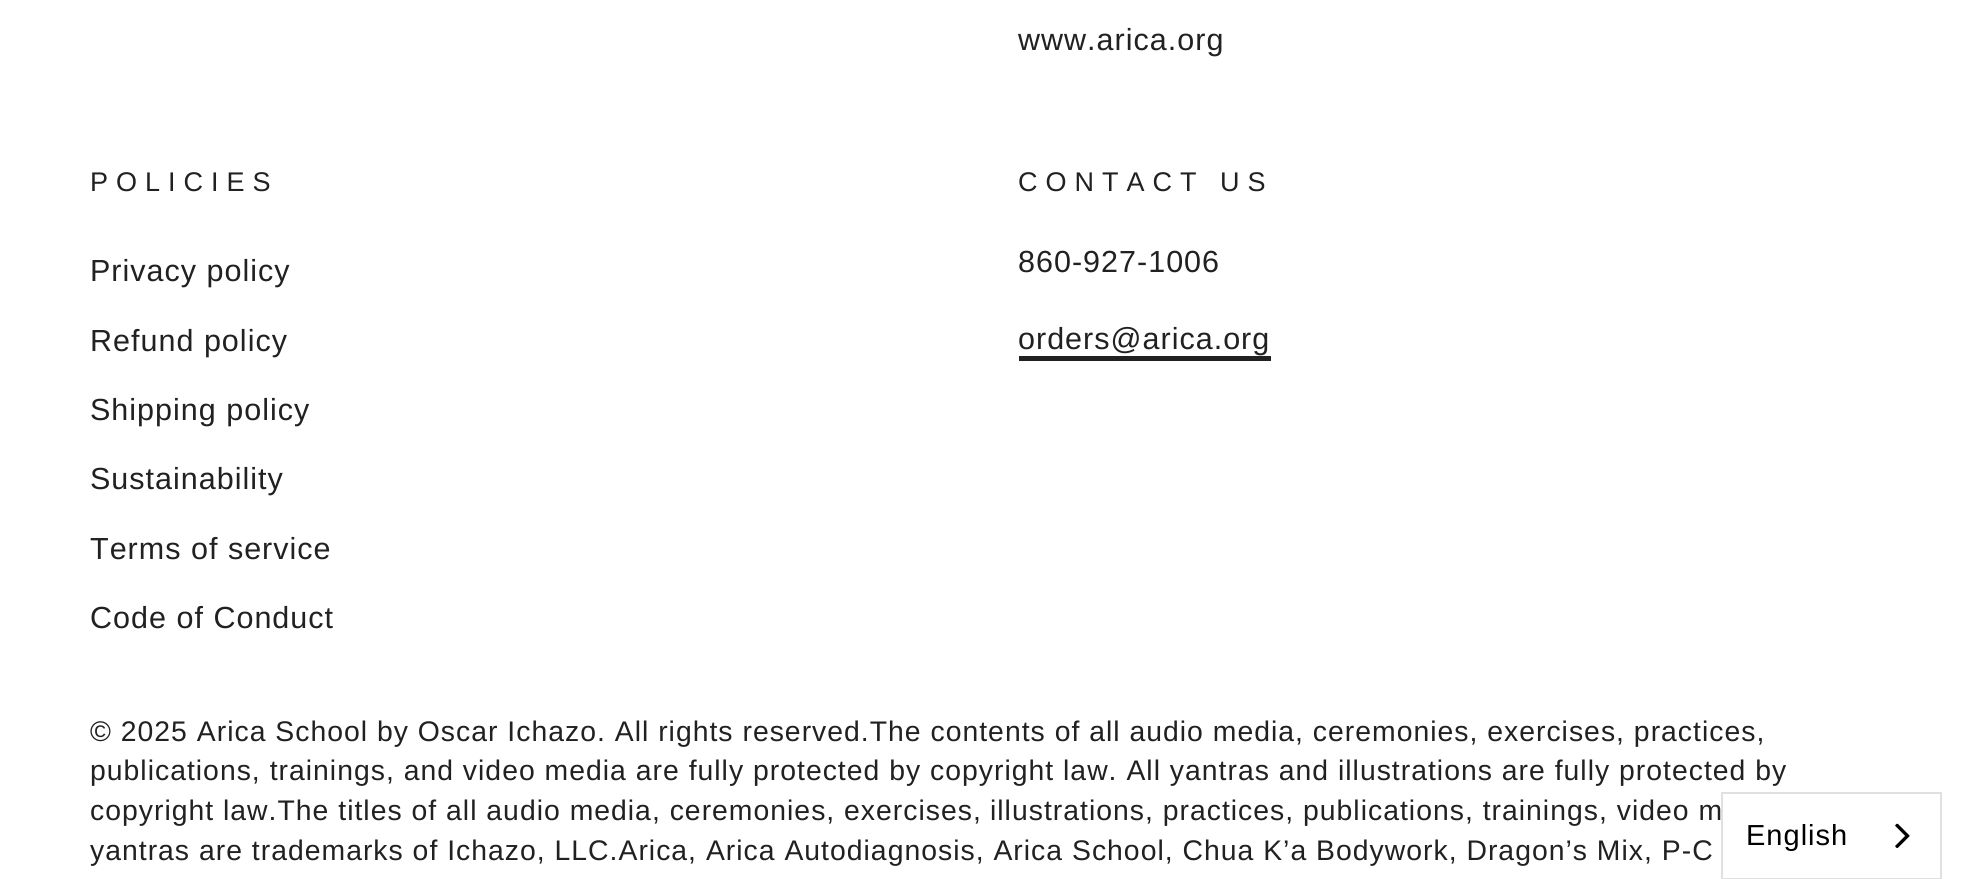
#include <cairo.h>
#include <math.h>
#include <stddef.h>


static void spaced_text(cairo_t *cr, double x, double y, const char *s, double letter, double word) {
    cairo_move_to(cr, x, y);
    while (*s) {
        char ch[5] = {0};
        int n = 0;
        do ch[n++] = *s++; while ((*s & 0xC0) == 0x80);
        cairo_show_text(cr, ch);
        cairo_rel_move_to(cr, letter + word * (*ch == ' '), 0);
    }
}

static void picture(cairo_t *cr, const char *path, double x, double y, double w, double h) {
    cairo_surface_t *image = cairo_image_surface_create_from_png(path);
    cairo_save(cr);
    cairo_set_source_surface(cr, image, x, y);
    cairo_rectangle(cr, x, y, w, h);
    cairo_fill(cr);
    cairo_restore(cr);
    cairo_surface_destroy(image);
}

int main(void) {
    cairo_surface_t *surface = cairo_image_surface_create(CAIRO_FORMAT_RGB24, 1986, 879);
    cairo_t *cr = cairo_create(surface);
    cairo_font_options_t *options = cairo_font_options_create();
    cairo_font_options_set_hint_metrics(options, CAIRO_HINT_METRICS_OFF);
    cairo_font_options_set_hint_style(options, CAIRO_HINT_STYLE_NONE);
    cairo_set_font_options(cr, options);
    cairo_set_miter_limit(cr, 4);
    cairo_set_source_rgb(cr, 1, 1, 1);
    cairo_paint(cr);
    cairo_select_font_face(cr, "Arimo", CAIRO_FONT_SLANT_NORMAL, CAIRO_FONT_WEIGHT_NORMAL);
    cairo_set_font_size(cr, 30.5);
    cairo_set_source_rgb(cr, 0.129, 0.129, 0.129);
    spaced_text(cr, 1018, 50, "www.arica.org", 1.01, 0);
    cairo_set_font_size(cr, 27);
    spaced_text(cr, 90, 191, "POLICIES", 8, 0);
    cairo_set_font_size(cr, 30.5);
    spaced_text(cr, 90, 281, "Privacy policy", 1.01, 0);
    spaced_text(cr, 90, 351, "Refund policy", 1.01, 0);
    spaced_text(cr, 90, 420, "Shipping policy", 1.01, 0);
    spaced_text(cr, 90, 489, "Sustainability", 1.01, 0);
    spaced_text(cr, 90, 559, "Terms of service", 1.01, 0);
    spaced_text(cr, 90, 628, "Code of Conduct", 1.01, 0);
    cairo_set_font_size(cr, 27);
    spaced_text(cr, 1018, 191, "CONTACT US", 8, 0);
    cairo_set_font_size(cr, 30.5);
    spaced_text(cr, 1018, 272, "860-927-1006", 1.01, 0);
    spaced_text(cr, 1018, 349, "orders@arica.org", 1.01, 0);
    cairo_rectangle(cr, 1019, 356, 252, 5);
    cairo_fill(cr);
    cairo_set_font_size(cr, 28.35);
    spaced_text(cr, 90, 741, "© 2025 Arica School by Oscar Ichazo. All rights reserved.The contents of all audio media, ceremonies, exercises, practices,", 1.01, 0);
    spaced_text(cr, 90, 780, "publications, trainings, and video media are fully protected by copyright law. All yantras and illustrations are fully protected by", 1.01, 0);
    spaced_text(cr, 90, 820, "copyright law.The titles of all audio media, ceremonies, exercises,", 1.01, 0);
    spaced_text(cr, 990, 820, "illustrations, practices, publications, trainings, video m", 1.01, 0);
    spaced_text(cr, 90, 860, "yantras are trademarks of Ichazo, LLC.Arica, Arica Autodiagnosis, Arica School, Chua K’a Bodywork, Dragon’s Mix, P-C", 1.01, 0);
    cairo_rectangle(cr, 1722, 793, 219, 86);
    cairo_set_source_rgb(cr, 0.878, 0.878, 0.878);
    cairo_stroke(cr);
    cairo_set_font_size(cr, 29);
    cairo_set_source_rgb(cr, 0, 0, 0);
    spaced_text(cr, 1746, 845, "English", 1.01, 0);
    picture(cr, "img1.png", 1895, 823, 15, 26);
    cairo_surface_write_to_png(surface, "page.png");
    cairo_font_options_destroy(options);
    cairo_destroy(cr);
    cairo_surface_destroy(surface);
    return 0;
}
